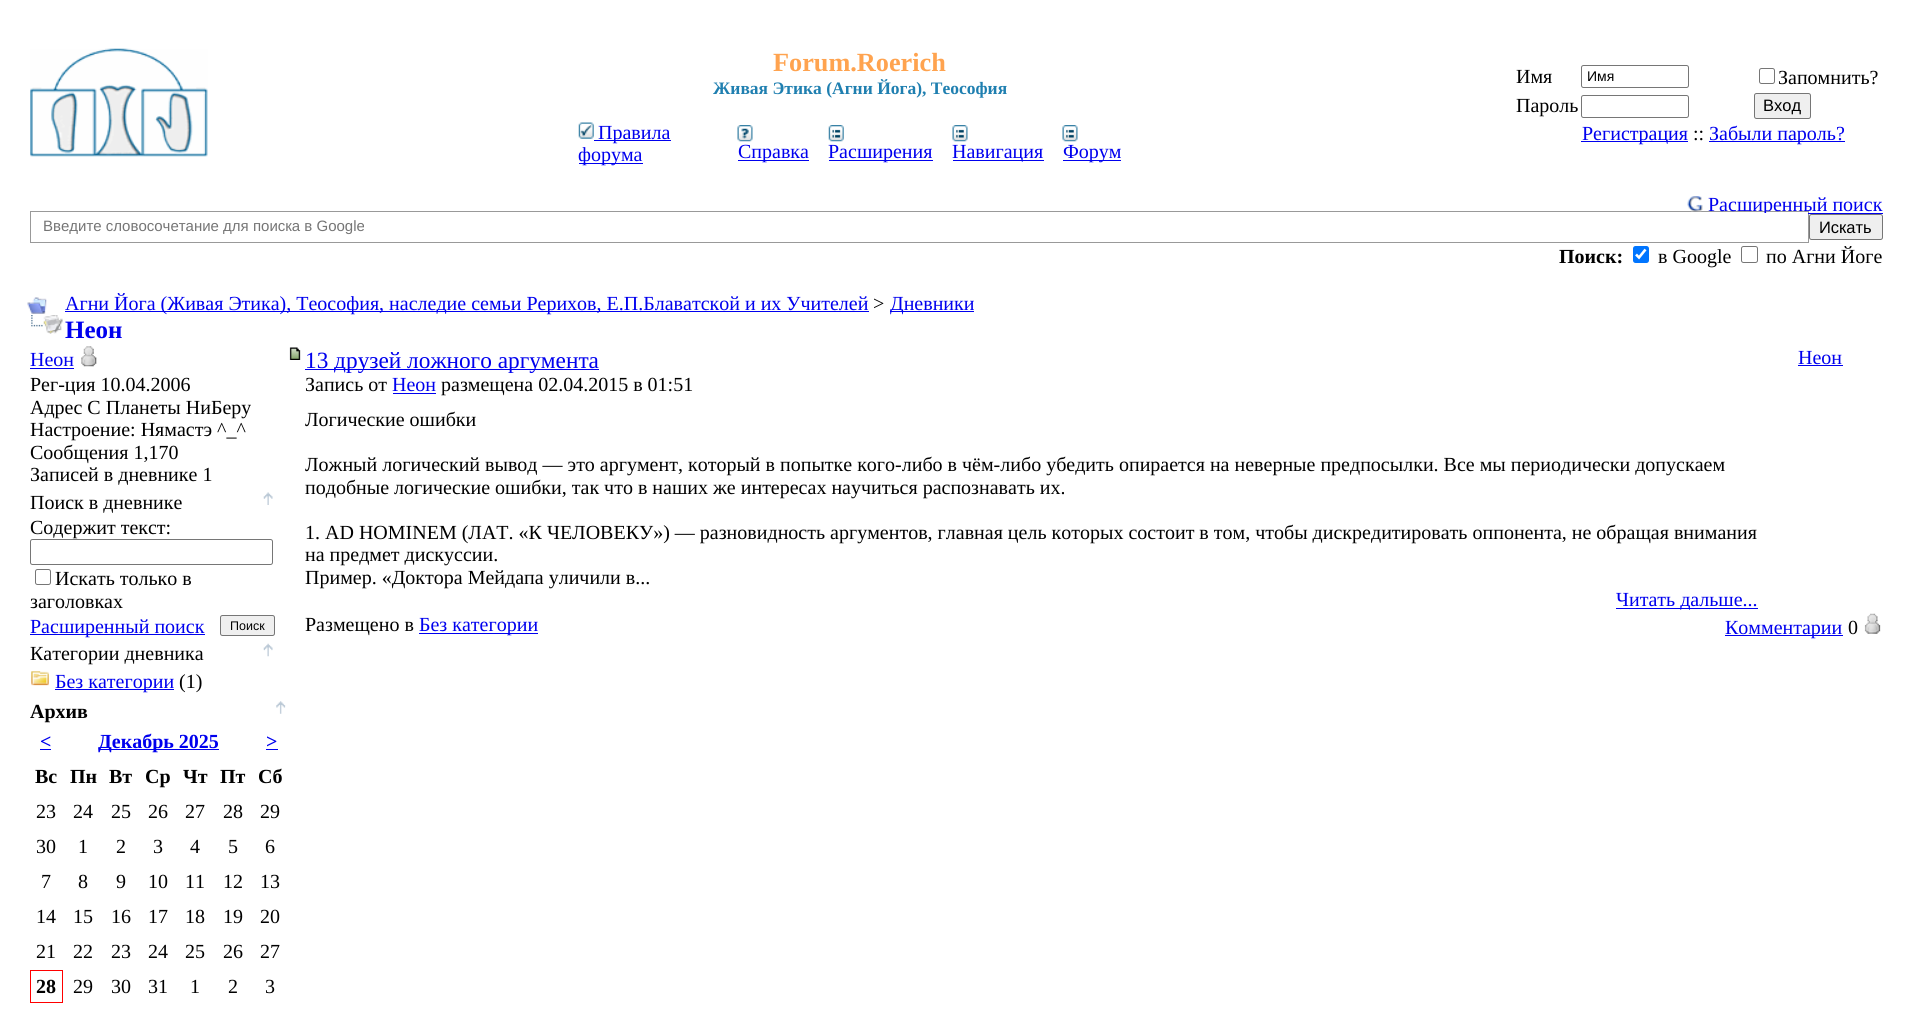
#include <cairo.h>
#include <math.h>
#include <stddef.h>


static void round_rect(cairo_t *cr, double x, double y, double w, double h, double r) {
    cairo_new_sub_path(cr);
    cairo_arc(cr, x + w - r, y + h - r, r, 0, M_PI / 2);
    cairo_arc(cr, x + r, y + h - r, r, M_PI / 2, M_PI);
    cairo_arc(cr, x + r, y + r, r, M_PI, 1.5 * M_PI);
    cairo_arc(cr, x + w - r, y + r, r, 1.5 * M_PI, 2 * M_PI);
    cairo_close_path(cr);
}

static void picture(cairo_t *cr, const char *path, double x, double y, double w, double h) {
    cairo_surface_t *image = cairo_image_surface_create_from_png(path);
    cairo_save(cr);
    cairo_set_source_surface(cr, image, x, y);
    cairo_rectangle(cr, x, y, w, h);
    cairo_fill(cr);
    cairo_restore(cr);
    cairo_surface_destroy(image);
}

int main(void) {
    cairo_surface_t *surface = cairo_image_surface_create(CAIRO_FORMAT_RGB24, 1912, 1032);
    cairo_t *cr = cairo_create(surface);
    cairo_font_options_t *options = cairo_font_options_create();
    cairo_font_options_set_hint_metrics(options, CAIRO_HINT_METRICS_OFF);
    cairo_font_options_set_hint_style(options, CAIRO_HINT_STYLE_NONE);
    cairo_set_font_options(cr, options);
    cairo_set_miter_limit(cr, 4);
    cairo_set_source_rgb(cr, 1, 1, 1);
    cairo_paint(cr);
    picture(cr, "img1.png", 30, 48, 178, 109);
    cairo_select_font_face(cr, "Liberation Serif", CAIRO_FONT_SLANT_NORMAL, CAIRO_FONT_WEIGHT_BOLD);
    cairo_set_font_size(cr, 26.25);
    cairo_set_source_rgb(cr, 1, 0.639, 0.31);
    cairo_move_to(cr, 773, 71);
    cairo_show_text(cr, "Forum.Roerich");
    cairo_set_font_size(cr, 17.5);
    cairo_set_source_rgb(cr, 0.122, 0.498, 0.69);
    cairo_move_to(cr, 713, 94);
    cairo_show_text(cr, "Живая Этика (Агни Йога), Теософия");
    picture(cr, "img2.png", 578, 122, 16, 17);
    cairo_set_source_rgb(cr, 0, 0, 0.933);
    cairo_rectangle(cr, 594, 140, 77, 1);
    cairo_fill(cr);
    cairo_select_font_face(cr, "Liberation Serif", CAIRO_FONT_SLANT_NORMAL, CAIRO_FONT_WEIGHT_NORMAL);
    cairo_set_font_size(cr, 20);
    cairo_move_to(cr, 598, 139);
    cairo_show_text(cr, "Правила");
    cairo_rectangle(cr, 579, 163, 64, 1);
    cairo_fill(cr);
    cairo_move_to(cr, 578, 161);
    cairo_show_text(cr, "форума");
    picture(cr, "img3.png", 737, 125, 16, 17);
    cairo_rectangle(cr, 738, 160, 71, 1);
    cairo_fill(cr);
    cairo_move_to(cr, 738, 158);
    cairo_show_text(cr, "Справка");
    picture(cr, "img4.png", 828, 125, 16, 17);
    cairo_rectangle(cr, 829, 160, 104, 1);
    cairo_fill(cr);
    cairo_move_to(cr, 828, 158);
    cairo_show_text(cr, "Расширения");
    picture(cr, "img5.png", 952, 125, 16, 17);
    cairo_rectangle(cr, 953, 160, 91, 1);
    cairo_fill(cr);
    cairo_move_to(cr, 952, 158);
    cairo_show_text(cr, "Навигация");
    picture(cr, "img5.png", 1062, 125, 16, 17);
    cairo_rectangle(cr, 1063, 160, 58, 1);
    cairo_fill(cr);
    cairo_move_to(cr, 1063, 158);
    cairo_show_text(cr, "Форум");
    cairo_set_source_rgb(cr, 0, 0, 0);
    cairo_move_to(cr, 1516, 83);
    cairo_show_text(cr, "Имя");
    round_rect(cr, 1581.5, 65.5, 107, 22, 2);
    cairo_set_source_rgb(cr, 0.463, 0.463, 0.463);
    cairo_set_line_width(cr, 1);
    cairo_stroke(cr);
    cairo_select_font_face(cr, "Liberation Sans", CAIRO_FONT_SLANT_NORMAL, CAIRO_FONT_WEIGHT_NORMAL);
    cairo_set_font_size(cr, 14);
    cairo_set_source_rgb(cr, 0, 0, 0);
    cairo_move_to(cr, 1587, 81);
    cairo_show_text(cr, "Имя");
    round_rect(cr, 1759.5, 68.5, 15, 15, 2);
    cairo_set_source_rgb(cr, 0.463, 0.463, 0.463);
    cairo_stroke(cr);
    cairo_select_font_face(cr, "Liberation Serif", CAIRO_FONT_SLANT_NORMAL, CAIRO_FONT_WEIGHT_NORMAL);
    cairo_set_font_size(cr, 20);
    cairo_set_source_rgb(cr, 0, 0, 0);
    cairo_move_to(cr, 1778, 84);
    cairo_show_text(cr, "Запомнить?");
    cairo_move_to(cr, 1516, 112);
    cairo_show_text(cr, "Пароль");
    round_rect(cr, 1581.5, 95.5, 107, 22, 2);
    cairo_set_source_rgb(cr, 0.463, 0.463, 0.463);
    cairo_stroke(cr);
    cairo_set_source_rgb(cr, 0.937, 0.937, 0.937);
    round_rect(cr, 1754.5, 93.5, 56, 25, 2);
    cairo_fill_preserve(cr);
    cairo_set_source_rgb(cr, 0.463, 0.463, 0.463);
    cairo_stroke(cr);
    cairo_select_font_face(cr, "Liberation Sans", CAIRO_FONT_SLANT_NORMAL, CAIRO_FONT_WEIGHT_NORMAL);
    cairo_set_font_size(cr, 16.5);
    cairo_set_source_rgb(cr, 0, 0, 0);
    cairo_move_to(cr, 1763, 111);
    cairo_show_text(cr, "Вход");
    cairo_set_source_rgb(cr, 0, 0, 0.933);
    cairo_rectangle(cr, 1581, 141, 107, 1);
    cairo_fill(cr);
    cairo_select_font_face(cr, "Liberation Serif", CAIRO_FONT_SLANT_NORMAL, CAIRO_FONT_WEIGHT_NORMAL);
    cairo_set_font_size(cr, 20);
    cairo_move_to(cr, 1582, 140);
    cairo_show_text(cr, "Регистрация");
    cairo_set_source_rgb(cr, 0, 0, 0);
    cairo_move_to(cr, 1693, 140);
    cairo_show_text(cr, "::");
    cairo_set_source_rgb(cr, 0, 0, 0.933);
    cairo_rectangle(cr, 1709, 141, 136, 1);
    cairo_fill(cr);
    cairo_move_to(cr, 1709, 140);
    cairo_show_text(cr, "Забыли пароль?");
    cairo_rectangle(cr, 30.5, 211.5, 1778, 31);
    cairo_set_source_rgb(cr, 0.6, 0.6, 0.6);
    cairo_stroke(cr);
    picture(cr, "img6.png", 1687, 196, 16, 16);
    cairo_set_source_rgb(cr, 0, 0, 0.933);
    cairo_rectangle(cr, 1808, 213, 75, 1);
    cairo_fill(cr);
    cairo_move_to(cr, 1708, 211);
    cairo_show_text(cr, "Расширенный поиск");
    cairo_set_source_rgb(cr, 1, 1, 1);
    cairo_rectangle(cr, 1763, 213, 5, 3);
    cairo_fill(cr);
    cairo_select_font_face(cr, "Liberation Sans", CAIRO_FONT_SLANT_NORMAL, CAIRO_FONT_WEIGHT_NORMAL);
    cairo_set_font_size(cr, 15);
    cairo_set_source_rgb(cr, 0.459, 0.459, 0.459);
    cairo_move_to(cr, 43, 231);
    cairo_show_text(cr, "Введите словосочетание для поиска в Google");
    cairo_set_source_rgb(cr, 0.937, 0.937, 0.937);
    round_rect(cr, 1809.5, 214.5, 73, 25, 2);
    cairo_fill_preserve(cr);
    cairo_set_source_rgb(cr, 0.463, 0.463, 0.463);
    cairo_stroke(cr);
    cairo_set_font_size(cr, 16.5);
    cairo_set_source_rgb(cr, 0, 0, 0);
    cairo_move_to(cr, 1819, 233);
    cairo_show_text(cr, "Искать");
    cairo_select_font_face(cr, "Liberation Serif", CAIRO_FONT_SLANT_NORMAL, CAIRO_FONT_WEIGHT_BOLD);
    cairo_set_font_size(cr, 20);
    cairo_move_to(cr, 1559, 263);
    cairo_show_text(cr, "Поиск:");
    cairo_set_source_rgb(cr, 0, 0.459, 1);
    round_rect(cr, 1633, 246, 16, 17, 2.5);
    cairo_fill(cr);
    cairo_new_path(cr);
    cairo_move_to(cr, 1636, 254.5);
    cairo_line_to(cr, 1639, 257.5);
    cairo_line_to(cr, 1645.5, 249.5);
    cairo_set_source_rgb(cr, 1, 1, 1);
    cairo_set_line_width(cr, 2.6);
    cairo_stroke(cr);
    cairo_select_font_face(cr, "Liberation Serif", CAIRO_FONT_SLANT_NORMAL, CAIRO_FONT_WEIGHT_NORMAL);
    cairo_set_source_rgb(cr, 0, 0, 0);
    cairo_move_to(cr, 1658, 263);
    cairo_show_text(cr, "в Google");
    round_rect(cr, 1741.5, 246.5, 16, 16, 2);
    cairo_set_source_rgb(cr, 0.463, 0.463, 0.463);
    cairo_set_line_width(cr, 1);
    cairo_stroke(cr);
    cairo_set_source_rgb(cr, 0, 0, 0);
    cairo_move_to(cr, 1766, 263);
    cairo_show_text(cr, "по Агни Йоге");
    picture(cr, "img7.png", 27, 297, 20, 17);
    cairo_set_source_rgb(cr, 0, 0, 0.933);
    cairo_rectangle(cr, 65, 311, 804, 1);
    cairo_fill(cr);
    cairo_move_to(cr, 65, 310);
    cairo_show_text(cr, "Агни Йога (Живая Этика), Теософия, наследие семьи Рерихов, Е.П.Блаватской и их Учителей");
    cairo_set_source_rgb(cr, 0, 0, 0);
    cairo_move_to(cr, 873, 310);
    cairo_show_text(cr, ">");
    cairo_set_source_rgb(cr, 0, 0, 0.933);
    cairo_rectangle(cr, 890, 311, 84, 1);
    cairo_fill(cr);
    cairo_move_to(cr, 890, 310);
    cairo_show_text(cr, "Дневники");
    picture(cr, "img8.png", 31, 315, 32, 19);
    cairo_select_font_face(cr, "Liberation Serif", CAIRO_FONT_SLANT_NORMAL, CAIRO_FONT_WEIGHT_BOLD);
    cairo_set_font_size(cr, 25);
    cairo_move_to(cr, 65, 338);
    cairo_show_text(cr, "Неон");
    cairo_select_font_face(cr, "Liberation Serif", CAIRO_FONT_SLANT_NORMAL, CAIRO_FONT_WEIGHT_NORMAL);
    cairo_set_font_size(cr, 20);
    cairo_move_to(cr, 30, 366);
    cairo_show_text(cr, "Неон");
    cairo_rectangle(cr, 30, 368, 44, 1);
    cairo_fill(cr);
    picture(cr, "img9.png", 81, 346, 16, 21);
    cairo_set_source_rgb(cr, 0, 0, 0);
    cairo_move_to(cr, 30, 391);
    cairo_show_text(cr, "Рег-ция 10.04.2006");
    cairo_move_to(cr, 30, 414);
    cairo_show_text(cr, "Адрес С Планеты НиБеру");
    cairo_move_to(cr, 30, 436);
    cairo_show_text(cr, "Настроение: Нямастэ ^_^");
    cairo_move_to(cr, 30, 459);
    cairo_show_text(cr, "Сообщения 1,170");
    cairo_move_to(cr, 30, 481);
    cairo_show_text(cr, "Записей в дневнике 1");
    cairo_move_to(cr, 30, 509);
    cairo_show_text(cr, "Поиск в дневнике");
    picture(cr, "img10.png", 263, 492, 10, 13);
    cairo_move_to(cr, 30, 534);
    cairo_show_text(cr, "Содержит текст:");
    round_rect(cr, 30.5, 539.5, 242, 25, 2);
    cairo_set_source_rgb(cr, 0.463, 0.463, 0.463);
    cairo_stroke(cr);
    round_rect(cr, 35.5, 569.5, 15, 15, 2);
    cairo_stroke(cr);
    cairo_set_source_rgb(cr, 0, 0, 0);
    cairo_move_to(cr, 55, 585);
    cairo_show_text(cr, "Искать только в");
    cairo_move_to(cr, 30, 608);
    cairo_show_text(cr, "заголовках");
    cairo_set_source_rgb(cr, 0, 0, 0.933);
    cairo_rectangle(cr, 30, 634, 175, 1);
    cairo_fill(cr);
    cairo_move_to(cr, 30, 633);
    cairo_show_text(cr, "Расширенный поиск");
    cairo_set_source_rgb(cr, 0.937, 0.937, 0.937);
    round_rect(cr, 220.5, 615.5, 54, 20, 2);
    cairo_fill_preserve(cr);
    cairo_set_source_rgb(cr, 0.463, 0.463, 0.463);
    cairo_stroke(cr);
    cairo_select_font_face(cr, "Liberation Sans", CAIRO_FONT_SLANT_NORMAL, CAIRO_FONT_WEIGHT_NORMAL);
    cairo_set_font_size(cr, 12.5);
    cairo_set_source_rgb(cr, 0, 0, 0);
    cairo_move_to(cr, 230, 630);
    cairo_show_text(cr, "Поиск");
    cairo_select_font_face(cr, "Liberation Serif", CAIRO_FONT_SLANT_NORMAL, CAIRO_FONT_WEIGHT_NORMAL);
    cairo_set_font_size(cr, 20);
    cairo_move_to(cr, 30, 660);
    cairo_show_text(cr, "Категории дневника");
    picture(cr, "img11.png", 263, 643, 10, 14);
    picture(cr, "img12.png", 31, 671, 18, 15);
    cairo_set_source_rgb(cr, 0, 0, 0.933);
    cairo_rectangle(cr, 55, 689, 119, 1);
    cairo_fill(cr);
    cairo_move_to(cr, 55, 688);
    cairo_show_text(cr, "Без категории");
    cairo_set_source_rgb(cr, 0, 0, 0);
    cairo_move_to(cr, 179, 688);
    cairo_show_text(cr, "(1)");
    cairo_select_font_face(cr, "Liberation Serif", CAIRO_FONT_SLANT_NORMAL, CAIRO_FONT_WEIGHT_BOLD);
    cairo_move_to(cr, 30, 718);
    cairo_show_text(cr, "Архив");
    picture(cr, "img13.png", 276, 701, 10, 13);
    cairo_set_source_rgb(cr, 0, 0, 0.933);
    cairo_move_to(cr, 40, 748);
    cairo_show_text(cr, "<");
    cairo_rectangle(cr, 40, 749, 11, 1);
    cairo_fill(cr);
    cairo_rectangle(cr, 99, 749, 120, 1);
    cairo_fill(cr);
    cairo_move_to(cr, 98, 748);
    cairo_show_text(cr, "Декабрь 2025");
    cairo_move_to(cr, 266, 748);
    cairo_show_text(cr, ">");
    cairo_rectangle(cr, 266, 749, 12, 1);
    cairo_fill(cr);
    cairo_set_source_rgb(cr, 0, 0, 0);
    cairo_move_to(cr, 35, 783);
    cairo_show_text(cr, "Вс");
    cairo_move_to(cr, 70, 783);
    cairo_show_text(cr, "Пн");
    cairo_move_to(cr, 109, 783);
    cairo_show_text(cr, "Вт");
    cairo_move_to(cr, 145, 783);
    cairo_show_text(cr, "Ср");
    cairo_move_to(cr, 183, 783);
    cairo_show_text(cr, "Чт");
    cairo_move_to(cr, 220, 783);
    cairo_show_text(cr, "Пт");
    cairo_move_to(cr, 258, 783);
    cairo_show_text(cr, "Сб");
    cairo_select_font_face(cr, "Liberation Serif", CAIRO_FONT_SLANT_NORMAL, CAIRO_FONT_WEIGHT_NORMAL);
    cairo_move_to(cr, 36, 818);
    cairo_show_text(cr, "23");
    cairo_move_to(cr, 73, 818);
    cairo_show_text(cr, "24");
    cairo_move_to(cr, 111, 818);
    cairo_show_text(cr, "25");
    cairo_move_to(cr, 148, 818);
    cairo_show_text(cr, "26");
    cairo_move_to(cr, 185, 818);
    cairo_show_text(cr, "27");
    cairo_move_to(cr, 223, 818);
    cairo_show_text(cr, "28");
    cairo_move_to(cr, 260, 818);
    cairo_show_text(cr, "29");
    cairo_move_to(cr, 36, 853);
    cairo_show_text(cr, "30");
    cairo_move_to(cr, 78, 853);
    cairo_show_text(cr, "1");
    cairo_move_to(cr, 116, 853);
    cairo_show_text(cr, "2");
    cairo_move_to(cr, 153, 853);
    cairo_show_text(cr, "3");
    cairo_move_to(cr, 190, 853);
    cairo_show_text(cr, "4");
    cairo_move_to(cr, 228, 853);
    cairo_show_text(cr, "5");
    cairo_move_to(cr, 265, 853);
    cairo_show_text(cr, "6");
    cairo_move_to(cr, 41, 888);
    cairo_show_text(cr, "7");
    cairo_move_to(cr, 78, 888);
    cairo_show_text(cr, "8");
    cairo_move_to(cr, 116, 888);
    cairo_show_text(cr, "9");
    cairo_move_to(cr, 148, 888);
    cairo_show_text(cr, "10");
    cairo_move_to(cr, 185, 888);
    cairo_show_text(cr, "11");
    cairo_move_to(cr, 223, 888);
    cairo_show_text(cr, "12");
    cairo_move_to(cr, 260, 888);
    cairo_show_text(cr, "13");
    cairo_move_to(cr, 36, 923);
    cairo_show_text(cr, "14");
    cairo_move_to(cr, 73, 923);
    cairo_show_text(cr, "15");
    cairo_move_to(cr, 111, 923);
    cairo_show_text(cr, "16");
    cairo_move_to(cr, 148, 923);
    cairo_show_text(cr, "17");
    cairo_move_to(cr, 185, 923);
    cairo_show_text(cr, "18");
    cairo_move_to(cr, 223, 923);
    cairo_show_text(cr, "19");
    cairo_move_to(cr, 260, 923);
    cairo_show_text(cr, "20");
    cairo_move_to(cr, 36, 958);
    cairo_show_text(cr, "21");
    cairo_move_to(cr, 73, 958);
    cairo_show_text(cr, "22");
    cairo_move_to(cr, 111, 958);
    cairo_show_text(cr, "23");
    cairo_move_to(cr, 148, 958);
    cairo_show_text(cr, "24");
    cairo_move_to(cr, 185, 958);
    cairo_show_text(cr, "25");
    cairo_move_to(cr, 223, 958);
    cairo_show_text(cr, "26");
    cairo_move_to(cr, 260, 958);
    cairo_show_text(cr, "27");
    cairo_rectangle(cr, 30.5, 970.5, 32, 32);
    cairo_set_source_rgb(cr, 1, 0, 0);
    cairo_stroke(cr);
    cairo_select_font_face(cr, "Liberation Serif", CAIRO_FONT_SLANT_NORMAL, CAIRO_FONT_WEIGHT_BOLD);
    cairo_set_source_rgb(cr, 0, 0, 0);
    cairo_move_to(cr, 36, 993);
    cairo_show_text(cr, "28");
    cairo_select_font_face(cr, "Liberation Serif", CAIRO_FONT_SLANT_NORMAL, CAIRO_FONT_WEIGHT_NORMAL);
    cairo_move_to(cr, 73, 993);
    cairo_show_text(cr, "29");
    cairo_move_to(cr, 111, 993);
    cairo_show_text(cr, "30");
    cairo_move_to(cr, 148, 993);
    cairo_show_text(cr, "31");
    cairo_move_to(cr, 190, 993);
    cairo_show_text(cr, "1");
    cairo_move_to(cr, 228, 993);
    cairo_show_text(cr, "2");
    cairo_move_to(cr, 265, 993);
    cairo_show_text(cr, "3");
    picture(cr, "img14.png", 289, 347, 12, 13);
    cairo_set_source_rgb(cr, 0, 0, 0.933);
    cairo_rectangle(cr, 305, 369, 294, 1);
    cairo_fill(cr);
    cairo_set_font_size(cr, 23.3);
    cairo_move_to(cr, 305, 368);
    cairo_show_text(cr, "13 друзей ложного аргумента");
    cairo_set_font_size(cr, 20);
    cairo_set_source_rgb(cr, 0, 0, 0);
    cairo_move_to(cr, 305, 391);
    cairo_show_text(cr, "Запись от");
    cairo_set_source_rgb(cr, 0, 0, 0.933);
    cairo_move_to(cr, 392, 391);
    cairo_show_text(cr, "Неон");
    cairo_rectangle(cr, 393, 393, 43, 1);
    cairo_fill(cr);
    cairo_set_source_rgb(cr, 0, 0, 0);
    cairo_move_to(cr, 441, 391);
    cairo_show_text(cr, "размещена 02.04.2015 в 01:51");
    cairo_move_to(cr, 305, 426);
    cairo_show_text(cr, "Логические ошибки");
    cairo_move_to(cr, 305, 471);
    cairo_show_text(cr, "Ложный логический вывод — это аргумент, который в попытке кого-либо в чём-либо убедить опирается на неверные предпосылки. Все мы периодически допускаем");
    cairo_move_to(cr, 305, 494);
    cairo_show_text(cr, "подобные логические ошибки, так что в наших же интересах научиться распознавать их.");
    cairo_move_to(cr, 305, 539);
    cairo_show_text(cr, "1. AD HOMINEM (ЛАТ. «К ЧЕЛОВЕКУ») — разновидность аргументов, главная цель которых состоит в том, чтобы дискредитировать оппонента, не обращая внимания");
    cairo_move_to(cr, 305, 561);
    cairo_show_text(cr, "на предмет дискуссии.");
    cairo_move_to(cr, 305, 584);
    cairo_show_text(cr, "Пример. «Доктора Мейдапа уличили в...");
    cairo_set_source_rgb(cr, 0, 0, 0.933);
    cairo_rectangle(cr, 1616, 608, 142, 1);
    cairo_fill(cr);
    cairo_move_to(cr, 1616, 606);
    cairo_show_text(cr, "Читать дальше...");
    cairo_move_to(cr, 1798, 364);
    cairo_show_text(cr, "Неон");
    cairo_rectangle(cr, 1798, 365, 45, 1);
    cairo_fill(cr);
    cairo_set_source_rgb(cr, 0, 0, 0);
    cairo_move_to(cr, 305, 631);
    cairo_show_text(cr, "Размещено в");
    cairo_set_source_rgb(cr, 0, 0, 0.933);
    cairo_rectangle(cr, 419, 633, 119, 1);
    cairo_fill(cr);
    cairo_move_to(cr, 419, 631);
    cairo_show_text(cr, "Без категории");
    cairo_rectangle(cr, 1725, 635, 118, 1);
    cairo_fill(cr);
    cairo_move_to(cr, 1725, 634);
    cairo_show_text(cr, "Комментарии");
    cairo_set_source_rgb(cr, 0, 0, 0);
    cairo_move_to(cr, 1848, 634);
    cairo_show_text(cr, "0");
    picture(cr, "img15.png", 1864, 613, 17, 21);
    cairo_surface_write_to_png(surface, "page.png");
    cairo_font_options_destroy(options);
    cairo_destroy(cr);
    cairo_surface_destroy(surface);
    return 0;
}
